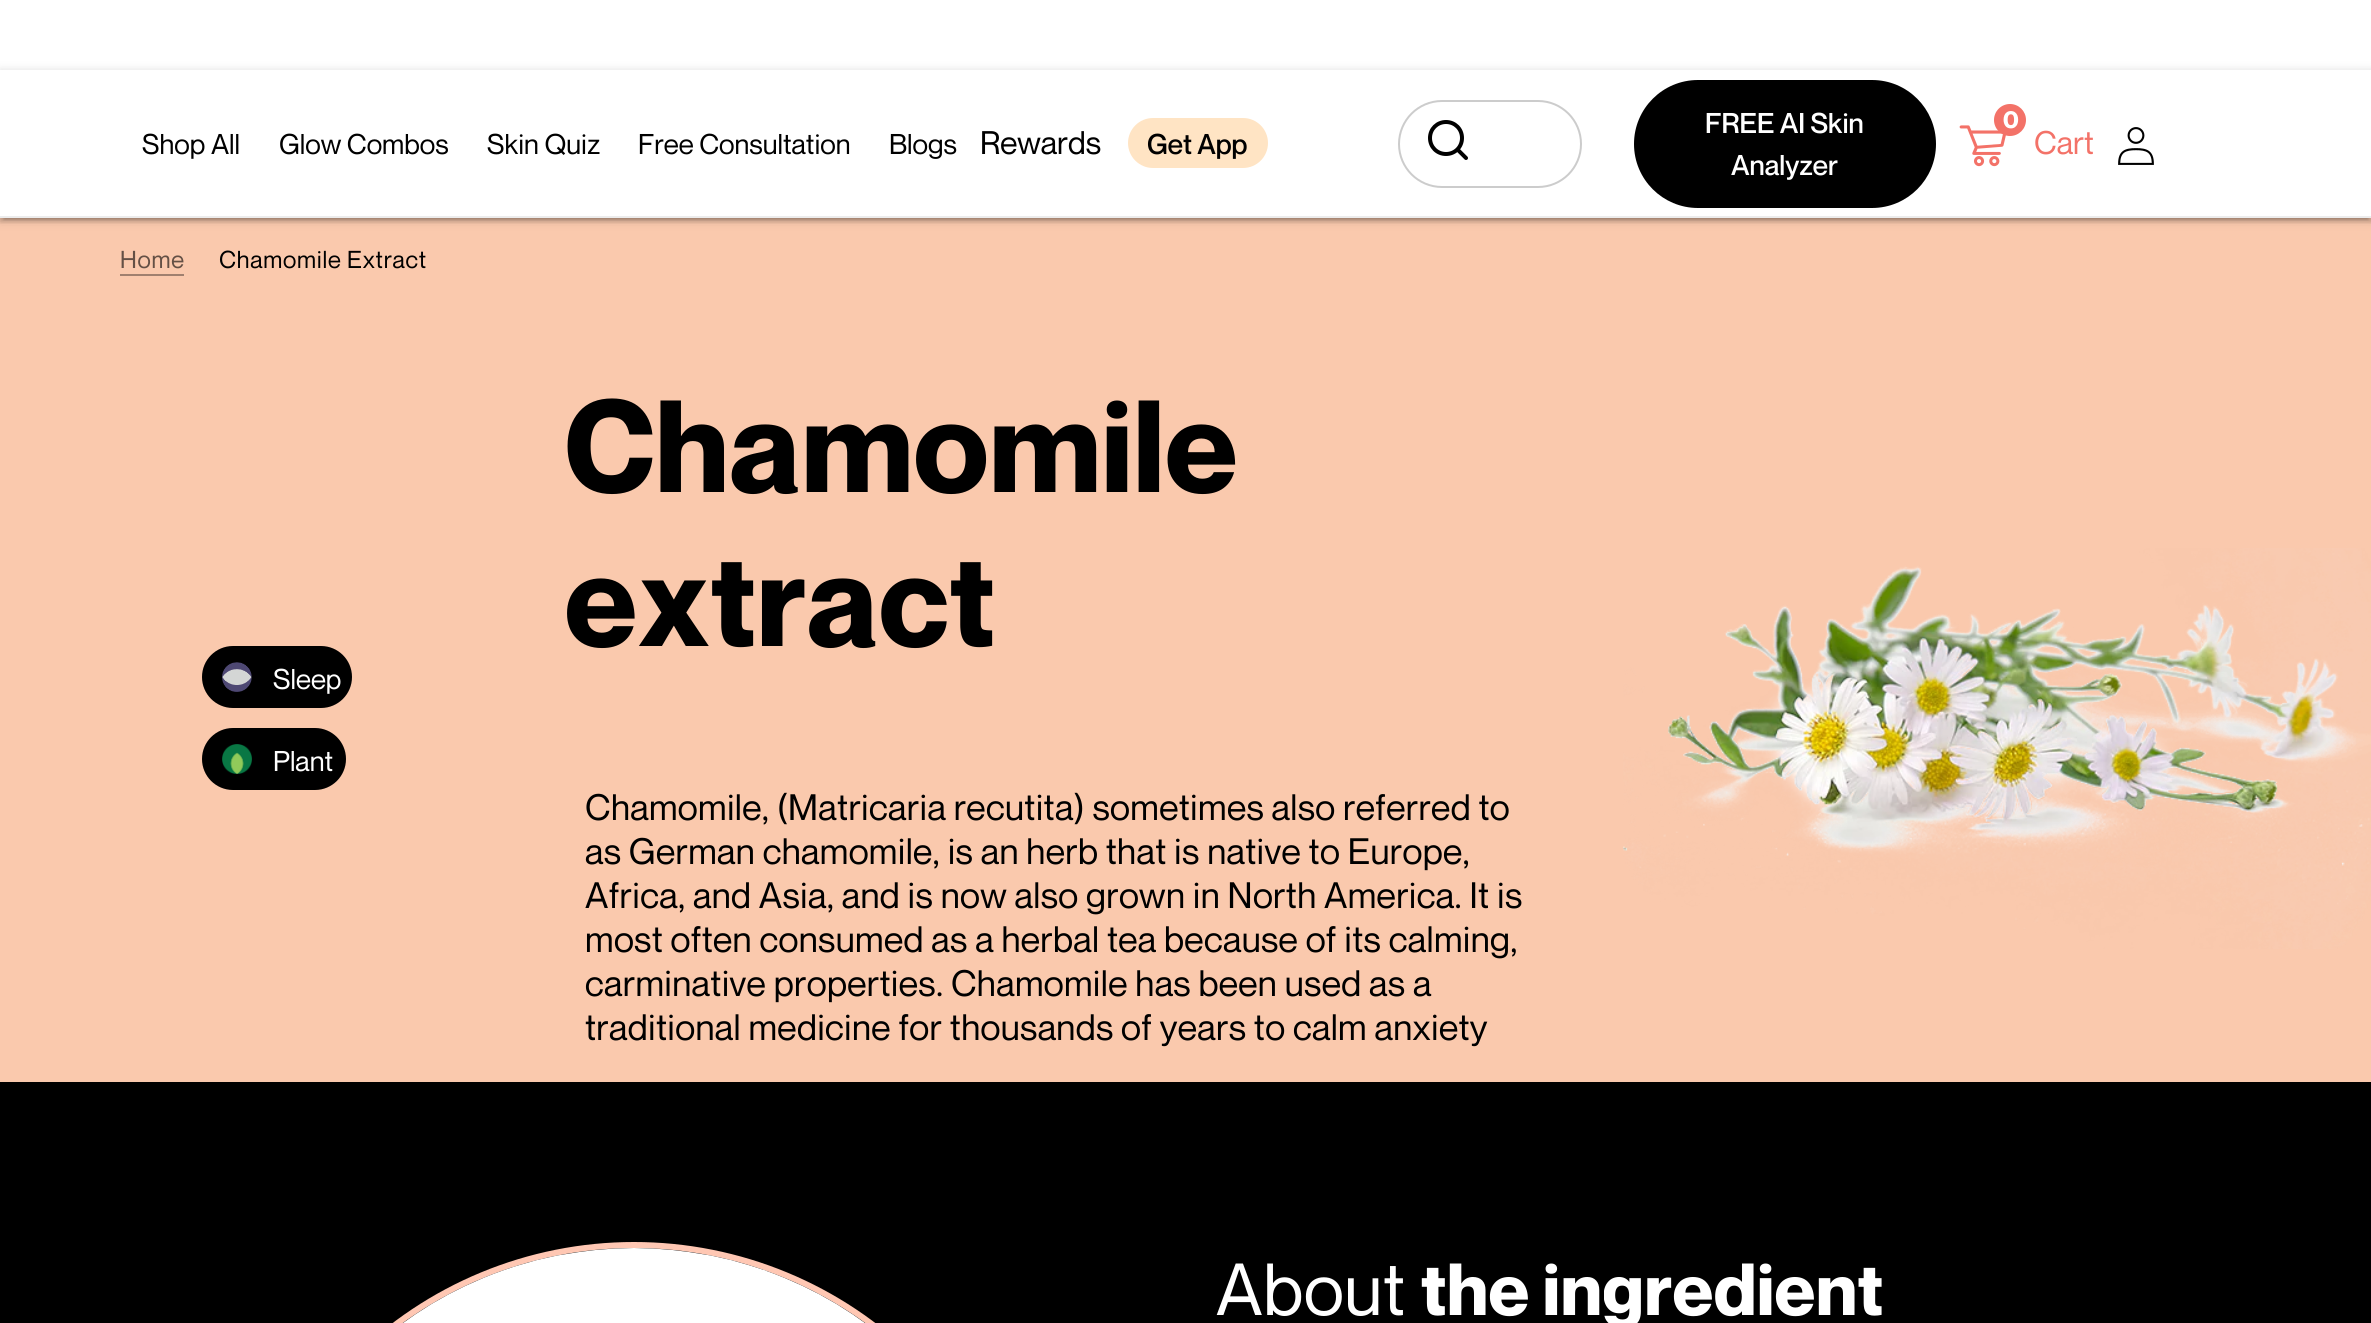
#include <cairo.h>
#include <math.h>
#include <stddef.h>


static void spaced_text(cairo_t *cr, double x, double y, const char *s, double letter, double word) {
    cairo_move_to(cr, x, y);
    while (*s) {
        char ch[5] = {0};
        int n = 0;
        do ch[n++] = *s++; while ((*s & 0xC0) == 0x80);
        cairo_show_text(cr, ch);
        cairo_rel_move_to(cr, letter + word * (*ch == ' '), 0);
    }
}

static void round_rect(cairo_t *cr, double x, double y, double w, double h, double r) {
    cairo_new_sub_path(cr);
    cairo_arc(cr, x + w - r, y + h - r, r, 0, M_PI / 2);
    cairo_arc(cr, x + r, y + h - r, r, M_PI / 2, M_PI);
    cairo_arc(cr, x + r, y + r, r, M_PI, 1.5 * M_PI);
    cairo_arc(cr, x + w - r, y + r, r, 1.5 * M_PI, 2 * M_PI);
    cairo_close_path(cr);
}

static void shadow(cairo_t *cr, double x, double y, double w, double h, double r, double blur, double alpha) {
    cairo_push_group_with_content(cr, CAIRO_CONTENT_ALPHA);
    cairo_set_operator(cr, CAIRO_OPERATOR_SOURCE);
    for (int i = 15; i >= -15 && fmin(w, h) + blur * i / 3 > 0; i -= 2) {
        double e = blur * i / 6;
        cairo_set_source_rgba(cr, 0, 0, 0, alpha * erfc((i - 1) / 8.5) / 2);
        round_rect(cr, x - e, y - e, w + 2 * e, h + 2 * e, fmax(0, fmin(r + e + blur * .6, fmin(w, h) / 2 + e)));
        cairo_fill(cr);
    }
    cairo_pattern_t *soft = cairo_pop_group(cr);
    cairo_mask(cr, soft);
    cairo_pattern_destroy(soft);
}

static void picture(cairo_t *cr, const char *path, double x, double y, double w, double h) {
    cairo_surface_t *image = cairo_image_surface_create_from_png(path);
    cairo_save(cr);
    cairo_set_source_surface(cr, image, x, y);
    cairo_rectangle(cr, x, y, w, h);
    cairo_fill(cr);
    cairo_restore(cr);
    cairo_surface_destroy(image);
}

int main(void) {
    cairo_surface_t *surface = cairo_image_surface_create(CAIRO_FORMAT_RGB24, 2371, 1323);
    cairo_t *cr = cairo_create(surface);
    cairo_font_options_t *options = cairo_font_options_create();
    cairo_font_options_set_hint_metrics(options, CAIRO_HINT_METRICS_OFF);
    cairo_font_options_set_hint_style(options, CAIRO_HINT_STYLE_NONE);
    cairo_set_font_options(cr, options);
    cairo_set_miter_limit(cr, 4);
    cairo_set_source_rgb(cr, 1, 1, 1);
    cairo_paint(cr);
    cairo_set_source_rgb(cr, 0.98, 0.788, 0.678);
    cairo_rectangle(cr, 0, 218, 2371, 864);
    cairo_fill(cr);
    cairo_save(cr);
    cairo_set_fill_rule(cr, CAIRO_FILL_RULE_EVEN_ODD);
    cairo_new_path(cr);
    cairo_move_to(cr, 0, 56);
    cairo_line_to(cr, 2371, 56);
    cairo_line_to(cr, 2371, 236);
    cairo_line_to(cr, 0, 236);
    cairo_close_path(cr);
    cairo_move_to(cr, 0, 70);
    cairo_line_to(cr, 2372, 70);
    cairo_line_to(cr, 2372, 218);
    cairo_line_to(cr, 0, 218);
    cairo_close_path(cr);
    cairo_clip(cr);
    cairo_set_source_rgb(cr, 0, 0, 0);
    shadow(cr, 0, 72, 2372, 148, 0, 5, 0.2);
    cairo_restore(cr);
    cairo_save(cr);
    cairo_rectangle(cr, 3, 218, 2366, 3);
    cairo_clip(cr);
    cairo_set_source_rgb(cr, 0, 0, 0);
    shadow(cr, 4, 80, 2364, 140, 0, 1, 0.12);
    cairo_restore(cr);
    cairo_save(cr);
    cairo_rectangle(cr, 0, 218, 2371, 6);
    cairo_clip(cr);
    cairo_set_source_rgb(cr, 0, 0, 0);
    shadow(cr, 0, 74, 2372, 148, 0, 2, 0.14);
    cairo_restore(cr);
    cairo_set_source_rgb(cr, 0.922, 0.922, 0.922);
    cairo_rectangle(cr, 0, 216, 2371, 2);
    cairo_fill(cr);
    cairo_select_font_face(cr, "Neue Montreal", CAIRO_FONT_SLANT_NORMAL, CAIRO_FONT_WEIGHT_NORMAL);
    cairo_set_font_size(cr, 28);
    cairo_set_source_rgb(cr, 0, 0, 0);
    cairo_move_to(cr, 142, 154);
    cairo_show_text(cr, "Shop All");
    cairo_move_to(cr, 279, 154);
    cairo_show_text(cr, "Glow Combos");
    cairo_move_to(cr, 487, 154);
    cairo_show_text(cr, "Skin Quiz");
    cairo_move_to(cr, 638, 154);
    cairo_show_text(cr, "Free Consultation");
    cairo_move_to(cr, 889, 154);
    cairo_show_text(cr, "Blogs");
    cairo_set_font_size(cr, 32);
    cairo_move_to(cr, 980, 154);
    cairo_show_text(cr, "Rewards");
    cairo_set_source_rgb(cr, 1, 0.894, 0.769);
    round_rect(cr, 1128, 118, 140, 50, 25);
    cairo_fill(cr);
    cairo_select_font_face(cr, "Neue Montreal Medium", CAIRO_FONT_SLANT_NORMAL, CAIRO_FONT_WEIGHT_NORMAL);
    cairo_set_font_size(cr, 28);
    cairo_set_source_rgb(cr, 0, 0, 0);
    cairo_move_to(cr, 1147, 154);
    cairo_show_text(cr, "Get App");
    round_rect(cr, 1399, 101, 182, 86, 43);
    cairo_set_source_rgb(cr, 0.8, 0.8, 0.8);
    cairo_stroke(cr);
    cairo_new_path(cr);
    cairo_move_to(cr, 1446, 154);
    cairo_curve_to(cr, 1455, 154, 1462, 147, 1462, 138);
    cairo_curve_to(cr, 1462, 129, 1455, 122, 1446, 122);
    cairo_curve_to(cr, 1437, 122, 1430, 129, 1430, 138);
    cairo_curve_to(cr, 1430, 147, 1437, 154, 1446, 154);
    cairo_close_path(cr);
    cairo_move_to(cr, 1466, 158);
    cairo_line_to(cr, 1457.5, 149.5);
    cairo_set_source_rgb(cr, 0, 0, 0);
    cairo_set_line_width(cr, 4);
    cairo_set_line_cap(cr, CAIRO_LINE_CAP_ROUND);
    cairo_set_line_join(cr, CAIRO_LINE_JOIN_ROUND);
    cairo_stroke(cr);
    round_rect(cr, 1634, 80, 302, 128, 64);
    cairo_fill(cr);
    cairo_set_source_rgb(cr, 1, 1, 1);
    cairo_move_to(cr, 1705, 133);
    cairo_show_text(cr, "FREE AI Skin");
    cairo_move_to(cr, 1731, 175);
    cairo_show_text(cr, "Analyzer");
    picture(cr, "img1.png", 1959, 125, 47, 42);
    cairo_set_source_rgb(cr, 0.953, 0.447, 0.408);
    cairo_arc(cr, 2010, 120, 16, 0, 2 * M_PI);
    cairo_fill(cr);
    cairo_select_font_face(cr, "Neue Montreal", CAIRO_FONT_SLANT_NORMAL, CAIRO_FONT_WEIGHT_BOLD);
    cairo_set_font_size(cr, 24);
    cairo_set_source_rgb(cr, 1, 1, 1);
    cairo_move_to(cr, 2003, 128);
    cairo_show_text(cr, "0");
    cairo_select_font_face(cr, "Neue Montreal", CAIRO_FONT_SLANT_NORMAL, CAIRO_FONT_WEIGHT_NORMAL);
    cairo_set_font_size(cr, 32);
    cairo_set_source_rgb(cr, 0.953, 0.447, 0.408);
    cairo_move_to(cr, 2034, 154);
    cairo_show_text(cr, "Cart");
    picture(cr, "img2.png", 2118, 127, 36, 38);
    cairo_set_font_size(cr, 24);
    cairo_set_source_rgb(cr, 0.392, 0.314, 0.271);
    spaced_text(cr, 120, 268, "Home", 0.75, 0);
    cairo_set_source_rgb(cr, 0.627, 0.502, 0.435);
    cairo_rectangle(cr, 120, 274, 64, 2);
    cairo_fill(cr);
    cairo_set_source_rgb(cr, 0, 0, 0);
    spaced_text(cr, 219, 268, "Chamomile Extract", 0.75, 0);
    round_rect(cr, 202, 646, 150, 62, 31);
    cairo_fill(cr);
    picture(cr, "img3.png", 222, 662, 30, 30);
    cairo_set_font_size(cr, 28);
    cairo_set_source_rgb(cr, 1, 1, 1);
    cairo_move_to(cr, 273, 689);
    cairo_show_text(cr, "Sleep");
    cairo_set_source_rgb(cr, 0, 0, 0);
    round_rect(cr, 202, 728, 144, 62, 31);
    cairo_fill(cr);
    picture(cr, "img4.png", 222, 744, 30, 30);
    cairo_set_source_rgb(cr, 1, 1, 1);
    cairo_move_to(cr, 273, 771);
    cairo_show_text(cr, "Plant");
    cairo_select_font_face(cr, "Neue Montreal", CAIRO_FONT_SLANT_NORMAL, CAIRO_FONT_WEIGHT_BOLD);
    cairo_set_font_size(cr, 128);
    cairo_set_source_rgb(cr, 0, 0, 0);
    spaced_text(cr, 565, 492, "Chamomile", 1.25, 0);
    spaced_text(cr, 565, 646, "extract", 1.25, 0);
    cairo_select_font_face(cr, "Neue Montreal", CAIRO_FONT_SLANT_NORMAL, CAIRO_FONT_WEIGHT_NORMAL);
    cairo_set_font_size(cr, 36);
    spaced_text(cr, 585, 820, "Chamomile, (Matricaria recutita) sometimes also referred to", 0.35, 0);
    spaced_text(cr, 585, 864, "as German chamomile, is an herb that is native to Europe,", 0.35, 0);
    spaced_text(cr, 585, 908, "Africa, and Asia, and is now also grown in North America. It is", 0.35, 0);
    spaced_text(cr, 585, 952, "most often consumed as a herbal tea because of its calming,", 0.35, 0);
    spaced_text(cr, 585, 996, "carminative properties. Chamomile has been used as a", 0.35, 0);
    spaced_text(cr, 585, 1040, "traditional medicine for thousands of years to calm anxiety", 0.35, 0);
    picture(cr, "img5.png", 1623, 548, 748, 401);
    cairo_rectangle(cr, 0, 1082, 2371, 241);
    cairo_fill(cr);
    round_rect(cr, 237, 1245, 794, 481, 397);
    cairo_set_source_rgb(cr, 1, 0.78, 0.702);
    cairo_set_line_width(cr, 6);
    cairo_set_line_cap(cr, CAIRO_LINE_CAP_BUTT);
    cairo_set_line_join(cr, CAIRO_LINE_JOIN_MITER);
    cairo_stroke(cr);
    picture(cr, "img6.png", 403, 1248, 462, 75);
    cairo_set_font_size(cr, 72);
    cairo_set_source_rgb(cr, 1, 1, 1);
    spaced_text(cr, 1216, 1315, "About", 0.75, 0);
    cairo_select_font_face(cr, "Neue Montreal", CAIRO_FONT_SLANT_NORMAL, CAIRO_FONT_WEIGHT_BOLD);
    spaced_text(cr, 1421, 1315, "the ingredient", 0.75, 0);
    cairo_surface_write_to_png(surface, "page.png");
    cairo_font_options_destroy(options);
    cairo_destroy(cr);
    cairo_surface_destroy(surface);
    return 0;
}
